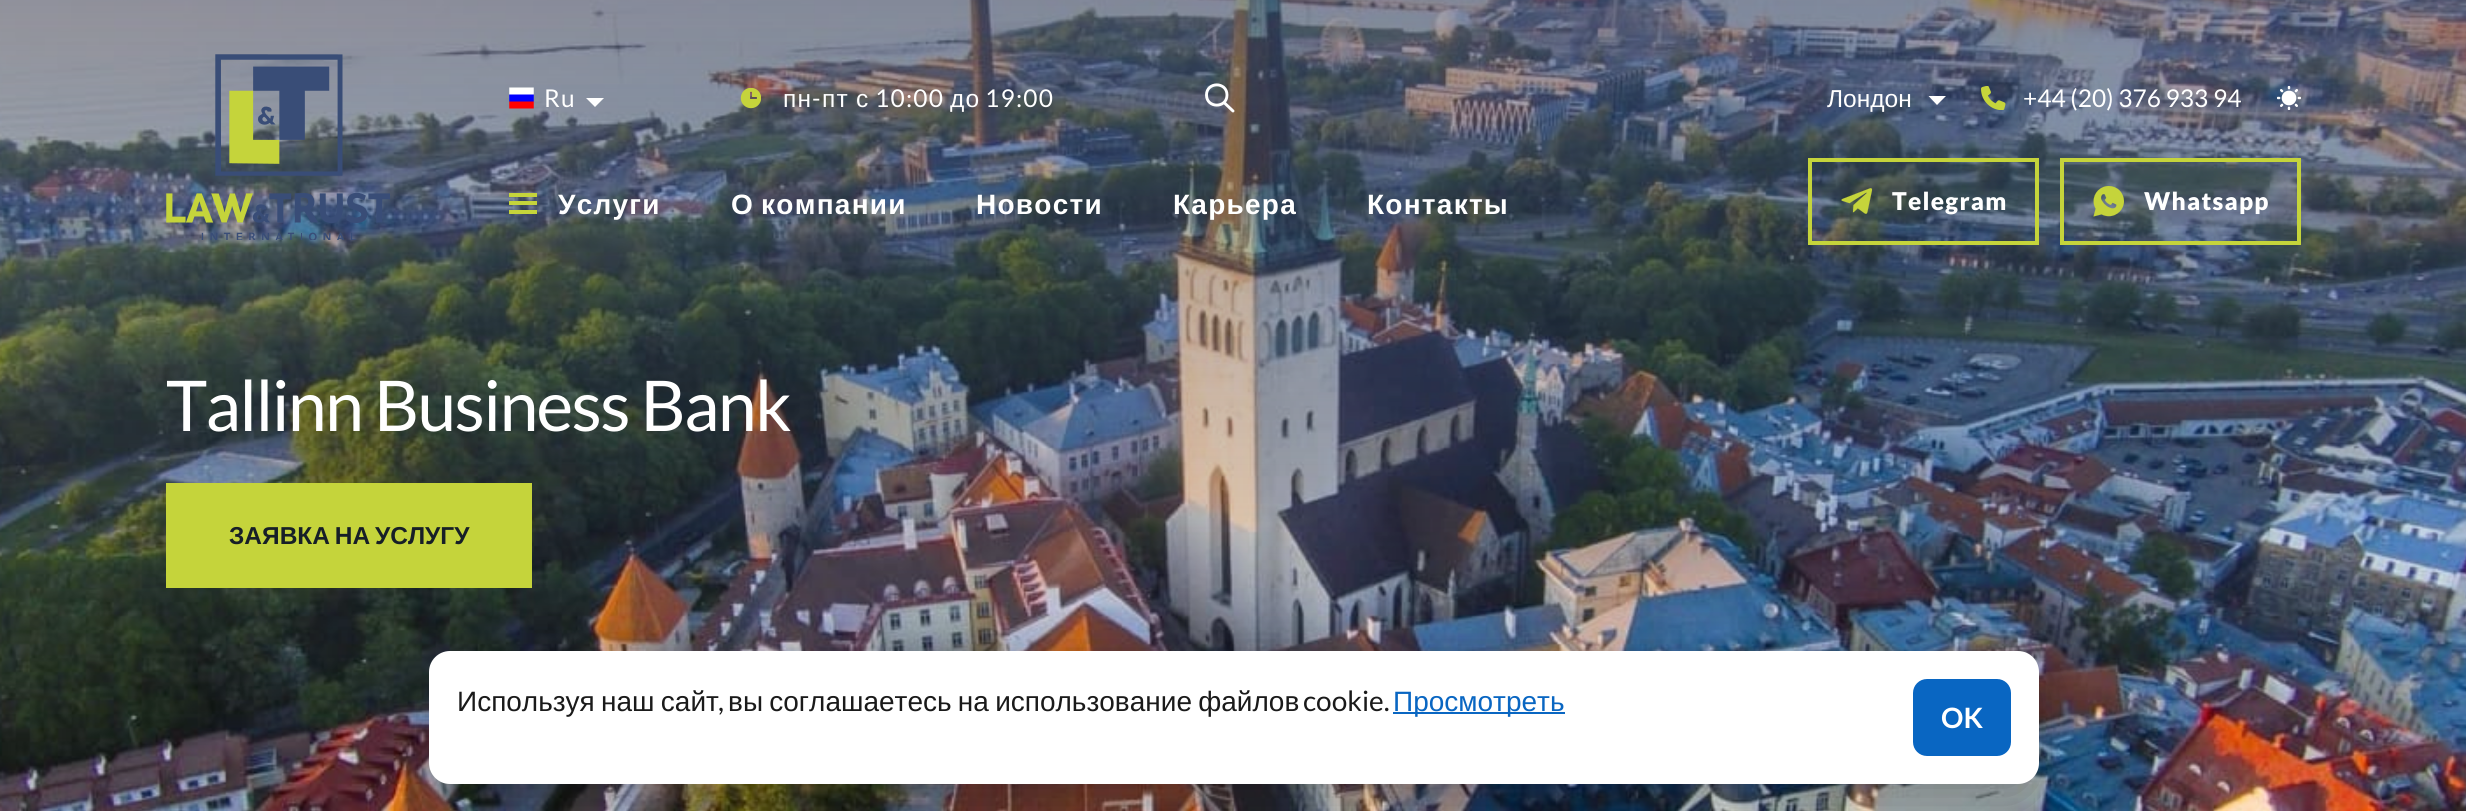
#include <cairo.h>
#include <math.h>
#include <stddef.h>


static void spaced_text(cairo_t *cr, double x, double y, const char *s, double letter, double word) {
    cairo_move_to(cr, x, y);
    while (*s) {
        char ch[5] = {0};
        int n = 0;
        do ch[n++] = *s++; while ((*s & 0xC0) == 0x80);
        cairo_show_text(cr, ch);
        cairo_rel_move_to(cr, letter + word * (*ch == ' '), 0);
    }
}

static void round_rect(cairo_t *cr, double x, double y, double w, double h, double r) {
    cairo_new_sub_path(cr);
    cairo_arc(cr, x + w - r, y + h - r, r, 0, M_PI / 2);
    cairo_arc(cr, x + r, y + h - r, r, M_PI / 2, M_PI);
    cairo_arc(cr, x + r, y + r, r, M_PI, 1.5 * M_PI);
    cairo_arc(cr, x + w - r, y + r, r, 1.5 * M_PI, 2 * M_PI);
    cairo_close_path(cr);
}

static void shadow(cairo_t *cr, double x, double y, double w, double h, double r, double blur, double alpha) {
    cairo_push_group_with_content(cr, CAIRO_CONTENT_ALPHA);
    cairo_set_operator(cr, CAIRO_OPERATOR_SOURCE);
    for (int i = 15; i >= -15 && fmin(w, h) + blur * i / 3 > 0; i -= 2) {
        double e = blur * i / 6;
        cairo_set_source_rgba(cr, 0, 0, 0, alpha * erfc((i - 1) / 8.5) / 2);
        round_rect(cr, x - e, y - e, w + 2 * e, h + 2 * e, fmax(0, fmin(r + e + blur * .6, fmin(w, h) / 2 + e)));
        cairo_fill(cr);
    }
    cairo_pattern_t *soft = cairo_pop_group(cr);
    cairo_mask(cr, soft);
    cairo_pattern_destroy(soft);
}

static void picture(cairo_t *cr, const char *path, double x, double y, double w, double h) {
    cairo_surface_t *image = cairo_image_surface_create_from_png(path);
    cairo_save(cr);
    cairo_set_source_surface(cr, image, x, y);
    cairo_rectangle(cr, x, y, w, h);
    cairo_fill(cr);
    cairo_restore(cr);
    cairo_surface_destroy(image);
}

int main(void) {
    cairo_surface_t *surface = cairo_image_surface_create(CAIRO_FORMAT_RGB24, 2466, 811);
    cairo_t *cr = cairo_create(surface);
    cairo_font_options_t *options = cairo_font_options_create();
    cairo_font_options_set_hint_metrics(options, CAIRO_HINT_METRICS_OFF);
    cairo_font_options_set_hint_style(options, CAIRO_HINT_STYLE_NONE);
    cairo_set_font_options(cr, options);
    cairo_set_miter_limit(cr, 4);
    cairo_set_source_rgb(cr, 1, 1, 1);
    cairo_paint(cr);
    picture(cr, "img8.png", 0, 0, 2466, 811);
    picture(cr, "img1.png", 166, 54, 224, 186);
    picture(cr, "img2.png", 509, 87, 25, 22);
    cairo_select_font_face(cr, "Lato", CAIRO_FONT_SLANT_NORMAL, CAIRO_FONT_WEIGHT_NORMAL);
    cairo_set_font_size(cr, 24.5);
    cairo_set_source_rgb(cr, 1, 1, 1);
    spaced_text(cr, 544, 107, "Ru", 1.25, 0);
    cairo_new_path(cr);
    cairo_move_to(cr, 586, 98);
    cairo_line_to(cr, 604, 98);
    cairo_line_to(cr, 595, 107);
    cairo_close_path(cr);
    cairo_fill(cr);
    picture(cr, "img3.png", 740, 88, 21, 21);
    cairo_select_font_face(cr, "Liberation Sans", CAIRO_FONT_SLANT_NORMAL, CAIRO_FONT_WEIGHT_NORMAL);
    spaced_text(cr, 783, 107, "пн", 1.25, 0);
    cairo_select_font_face(cr, "Lato", CAIRO_FONT_SLANT_NORMAL, CAIRO_FONT_WEIGHT_NORMAL);
    spaced_text(cr, 812, 107, "-", 1.25, 0);
    cairo_select_font_face(cr, "Liberation Sans", CAIRO_FONT_SLANT_NORMAL, CAIRO_FONT_WEIGHT_NORMAL);
    spaced_text(cr, 822, 107, "пт с", 1.25, -1);
    cairo_select_font_face(cr, "Lato", CAIRO_FONT_SLANT_NORMAL, CAIRO_FONT_WEIGHT_NORMAL);
    spaced_text(cr, 875, 107, "10:00", 1.25, 0);
    cairo_select_font_face(cr, "Liberation Sans", CAIRO_FONT_SLANT_NORMAL, CAIRO_FONT_WEIGHT_NORMAL);
    spaced_text(cr, 950, 107, "до", 1.25, 0);
    cairo_select_font_face(cr, "Lato", CAIRO_FONT_SLANT_NORMAL, CAIRO_FONT_WEIGHT_NORMAL);
    spaced_text(cr, 985, 107, "19:00", 1.25, 0);
    cairo_new_path(cr);
    cairo_move_to(cr, 1233, 111);
    cairo_line_to(cr, 1224, 102.5);
    cairo_move_to(cr, 1227, 95);
    cairo_curve_to(cr, 1227, 108.5, 1206.5, 108.5, 1206.5, 95);
    cairo_curve_to(cr, 1206.5, 81.5, 1227, 81.5, 1227, 95);
    cairo_close_path(cr);
    cairo_set_line_width(cr, 2.9);
    cairo_set_line_cap(cr, CAIRO_LINE_CAP_ROUND);
    cairo_set_line_join(cr, CAIRO_LINE_JOIN_ROUND);
    cairo_stroke(cr);
    cairo_set_source_rgb(cr, 0.773, 0.831, 0.231);
    cairo_rectangle(cr, 509, 193, 28, 4);
    cairo_fill(cr);
    cairo_rectangle(cr, 509, 201, 28, 4);
    cairo_fill(cr);
    cairo_rectangle(cr, 509, 210, 28, 4);
    cairo_fill(cr);
    cairo_select_font_face(cr, "Liberation Sans", CAIRO_FONT_SLANT_NORMAL, CAIRO_FONT_WEIGHT_BOLD);
    cairo_set_font_size(cr, 28);
    cairo_set_source_rgb(cr, 1, 1, 1);
    spaced_text(cr, 558, 214, "Услуги", 1.25, 0);
    spaced_text(cr, 731, 214, "О компании", 1.25, -2);
    spaced_text(cr, 976, 214, "Новости", 1.25, 0);
    spaced_text(cr, 1173, 214, "Карьера", 1.25, 0);
    spaced_text(cr, 1367, 214, "Контакты", 1.25, 0);
    cairo_select_font_face(cr, "Liberation Sans", CAIRO_FONT_SLANT_NORMAL, CAIRO_FONT_WEIGHT_NORMAL);
    cairo_set_font_size(cr, 24.5);
    cairo_move_to(cr, 1827, 107);
    cairo_show_text(cr, "Лондон");
    cairo_new_path(cr);
    cairo_move_to(cr, 1928.5, 96);
    cairo_line_to(cr, 1946, 96);
    cairo_line_to(cr, 1937, 105);
    cairo_close_path(cr);
    cairo_fill(cr);
    picture(cr, "img4.png", 1981, 86, 25, 24);
    cairo_select_font_face(cr, "Lato", CAIRO_FONT_SLANT_NORMAL, CAIRO_FONT_WEIGHT_NORMAL);
    cairo_move_to(cr, 2023, 107);
    cairo_show_text(cr, "+44 (20) 376 933 94");
    picture(cr, "img5.png", 2277, 86, 24, 24);
    cairo_rectangle(cr, 1810, 160, 227, 83);
    cairo_set_source_rgb(cr, 0.773, 0.831, 0.231);
    cairo_set_line_width(cr, 4);
    cairo_set_line_cap(cr, CAIRO_LINE_CAP_BUTT);
    cairo_set_line_join(cr, CAIRO_LINE_JOIN_MITER);
    cairo_stroke(cr);
    picture(cr, "img6.png", 1841, 188, 32, 26);
    cairo_select_font_face(cr, "Lato Black", CAIRO_FONT_SLANT_NORMAL, CAIRO_FONT_WEIGHT_NORMAL);
    cairo_set_source_rgb(cr, 1, 1, 1);
    spaced_text(cr, 1892, 210, "Telegram", 1.25, 0);
    cairo_rectangle(cr, 2062, 160, 237, 83);
    cairo_set_source_rgb(cr, 0.773, 0.831, 0.231);
    cairo_stroke(cr);
    picture(cr, "img7.png", 2093, 186, 31, 31);
    cairo_set_source_rgb(cr, 1, 1, 1);
    spaced_text(cr, 2144, 210, "Whatsapp", 1.25, 0);
    cairo_select_font_face(cr, "Lato", CAIRO_FONT_SLANT_NORMAL, CAIRO_FONT_WEIGHT_NORMAL);
    cairo_set_font_size(cr, 70);
    spaced_text(cr, 166, 431, "Tallinn Business Bank", -1.75, 0);
    cairo_set_source_rgb(cr, 0.773, 0.831, 0.231);
    cairo_rectangle(cr, 166, 483, 366, 105);
    cairo_fill(cr);
    cairo_select_font_face(cr, "Liberation Sans", CAIRO_FONT_SLANT_NORMAL, CAIRO_FONT_WEIGHT_BOLD);
    cairo_set_font_size(cr, 24.5);
    cairo_set_source_rgb(cr, 0.09, 0.122, 0.153);
    spaced_text(cr, 229, 544, "ЗАЯВКА НА УСЛУГУ", 0, -2);
    cairo_set_source_rgb(cr, 0, 0, 0);
    shadow(cr, 429, 669, 1610, 133, 21, 26, 0.25);
    cairo_set_source_rgb(cr, 1, 1, 1);
    round_rect(cr, 429, 651, 1610, 133, 21);
    cairo_fill(cr);
    cairo_select_font_face(cr, "Liberation Sans", CAIRO_FONT_SLANT_NORMAL, CAIRO_FONT_WEIGHT_NORMAL);
    cairo_set_font_size(cr, 28);
    cairo_set_source_rgb(cr, 0.102, 0.102, 0.102);
    spaced_text(cr, 457, 711, "Используя наш сайт", 0, -1.5);
    cairo_select_font_face(cr, "Lato", CAIRO_FONT_SLANT_NORMAL, CAIRO_FONT_WEIGHT_NORMAL);
    cairo_move_to(cr, 718, 711);
    cairo_show_text(cr, ",");
    cairo_select_font_face(cr, "Liberation Sans", CAIRO_FONT_SLANT_NORMAL, CAIRO_FONT_WEIGHT_NORMAL);
    spaced_text(cr, 728, 711, "вы соглашаетесь на использование файлов", 0, -1.5);
    cairo_select_font_face(cr, "Lato", CAIRO_FONT_SLANT_NORMAL, CAIRO_FONT_WEIGHT_NORMAL);
    cairo_move_to(cr, 1303, 711);
    cairo_show_text(cr, "cookie.");
    cairo_set_source_rgb(cr, 0.039, 0.4, 0.761);
    cairo_rectangle(cr, 1393, 712, 172, 2);
    cairo_fill(cr);
    cairo_select_font_face(cr, "Liberation Sans", CAIRO_FONT_SLANT_NORMAL, CAIRO_FONT_WEIGHT_NORMAL);
    cairo_move_to(cr, 1393, 711);
    cairo_show_text(cr, "Просмотреть");
    round_rect(cr, 1913, 679, 98, 77, 14);
    cairo_fill(cr);
    cairo_select_font_face(cr, "Lato", CAIRO_FONT_SLANT_NORMAL, CAIRO_FONT_WEIGHT_BOLD);
    cairo_set_source_rgb(cr, 1, 1, 1);
    cairo_move_to(cr, 1941, 728);
    cairo_show_text(cr, "OK");
    cairo_surface_write_to_png(surface, "page.png");
    cairo_font_options_destroy(options);
    cairo_destroy(cr);
    cairo_surface_destroy(surface);
    return 0;
}
